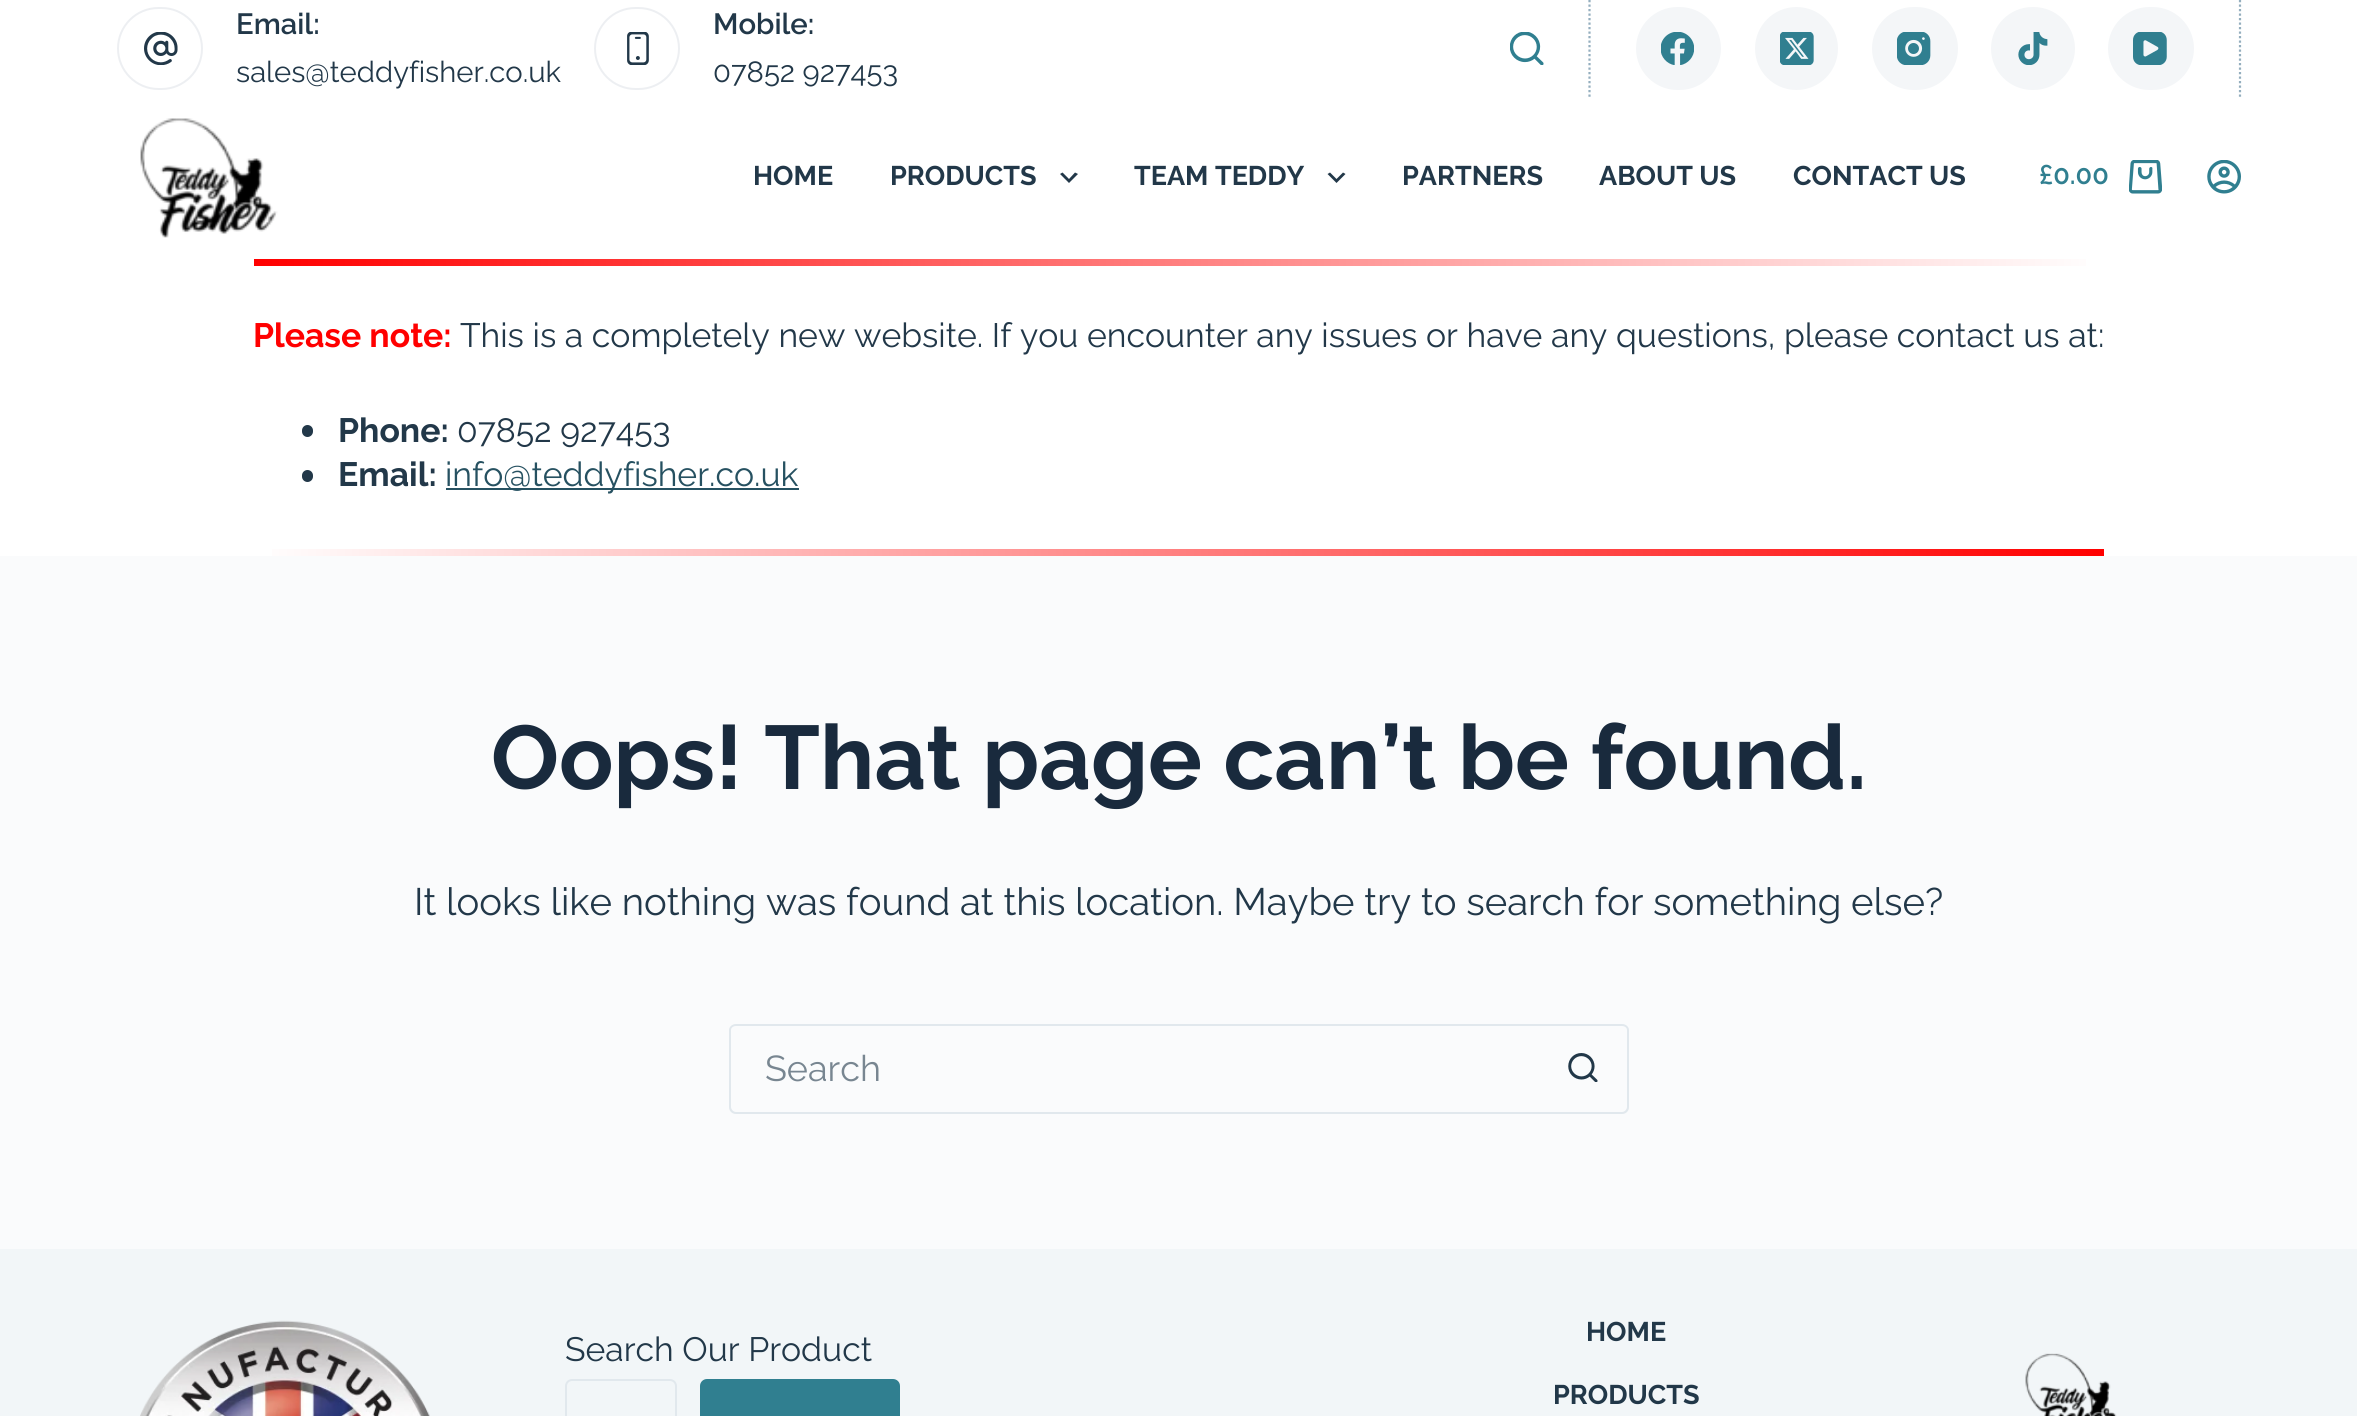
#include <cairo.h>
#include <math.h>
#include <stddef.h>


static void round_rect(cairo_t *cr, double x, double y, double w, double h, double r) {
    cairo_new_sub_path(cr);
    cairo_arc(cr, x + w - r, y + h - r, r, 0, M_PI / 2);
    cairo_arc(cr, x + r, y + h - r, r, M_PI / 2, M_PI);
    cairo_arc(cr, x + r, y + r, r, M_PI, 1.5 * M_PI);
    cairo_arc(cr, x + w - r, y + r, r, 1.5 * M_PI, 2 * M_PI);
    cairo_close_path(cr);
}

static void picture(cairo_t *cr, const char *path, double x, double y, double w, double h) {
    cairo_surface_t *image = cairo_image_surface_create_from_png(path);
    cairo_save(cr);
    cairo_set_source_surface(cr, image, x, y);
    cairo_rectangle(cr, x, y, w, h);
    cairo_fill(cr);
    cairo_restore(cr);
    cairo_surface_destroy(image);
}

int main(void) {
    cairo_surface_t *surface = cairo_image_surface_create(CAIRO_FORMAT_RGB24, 2357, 1416);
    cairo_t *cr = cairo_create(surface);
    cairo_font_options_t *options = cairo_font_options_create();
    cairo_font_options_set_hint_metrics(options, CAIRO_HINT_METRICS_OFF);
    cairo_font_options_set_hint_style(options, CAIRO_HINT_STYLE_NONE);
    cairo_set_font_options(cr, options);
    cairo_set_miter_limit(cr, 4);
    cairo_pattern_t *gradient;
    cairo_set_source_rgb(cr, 0.98, 0.984, 0.988);
    cairo_paint(cr);
    cairo_set_source_rgb(cr, 1, 1, 1);
    cairo_rectangle(cr, 0, 0, 2357, 556);
    cairo_fill(cr);
    round_rect(cr, 118, 8, 84, 81, 40.5);
    cairo_set_source_rgb(cr, 0.929, 0.937, 0.949);
    cairo_stroke(cr);
    picture(cr, "img1.png", 144, 32, 34, 33);
    cairo_select_font_face(cr, "Raleway SemiBold", CAIRO_FONT_SLANT_NORMAL, CAIRO_FONT_WEIGHT_NORMAL);
    cairo_set_font_size(cr, 29.25);
    cairo_set_source_rgb(cr, 0.133, 0.22, 0.286);
    cairo_move_to(cr, 236, 34);
    cairo_show_text(cr, "Email:");
    cairo_select_font_face(cr, "Raleway", CAIRO_FONT_SLANT_NORMAL, CAIRO_FONT_WEIGHT_NORMAL);
    cairo_move_to(cr, 236, 82);
    cairo_show_text(cr, "sales@teddyfisher.co.uk");
    round_rect(cr, 595, 8, 84, 81, 40.5);
    cairo_set_source_rgb(cr, 0.929, 0.937, 0.949);
    cairo_stroke(cr);
    picture(cr, "img2.png", 627, 32, 22, 33);
    cairo_select_font_face(cr, "Raleway SemiBold", CAIRO_FONT_SLANT_NORMAL, CAIRO_FONT_WEIGHT_NORMAL);
    cairo_set_source_rgb(cr, 0.133, 0.22, 0.286);
    cairo_move_to(cr, 713, 34);
    cairo_show_text(cr, "Mobile:");
    cairo_select_font_face(cr, "Raleway", CAIRO_FONT_SLANT_NORMAL, CAIRO_FONT_WEIGHT_NORMAL);
    cairo_move_to(cr, 713, 82);
    cairo_show_text(cr, "07852 927453");
    picture(cr, "img3.png", 1510, 32, 34, 33);
    cairo_new_path(cr);
    cairo_move_to(cr, 1589.5, 0);
    cairo_line_to(cr, 1589.5, 97);
    cairo_set_source_rgb(cr, 0.58, 0.682, 0.745);
    cairo_set_line_width(cr, 2.2);
    cairo_set_dash(cr, (double[]){2.25, 2.25}, 2, 0);
    cairo_stroke(cr);
    cairo_set_source_rgb(cr, 0.957, 0.961, 0.969);
    round_rect(cr, 1636, 7, 85, 83, 41.5);
    cairo_fill(cr);
    picture(cr, "img4.png", 1661, 32, 33, 33);
    cairo_arc(cr, 1796.5, 48.5, 41.5, 0, 2 * M_PI);
    cairo_fill(cr);
    picture(cr, "img5.png", 1780, 32, 34, 33);
    round_rect(cr, 1872, 7, 86, 83, 41.5);
    cairo_fill(cr);
    picture(cr, "img6.png", 1897, 32, 34, 33);
    round_rect(cr, 1991, 7, 84, 83, 41.5);
    cairo_fill(cr);
    picture(cr, "img7.png", 2018, 32, 30, 33);
    round_rect(cr, 2108, 7, 86, 83, 41.5);
    cairo_fill(cr);
    picture(cr, "img8.png", 2133, 32, 34, 33);
    cairo_new_path(cr);
    cairo_move_to(cr, 2240, 0);
    cairo_line_to(cr, 2240, 97);
    cairo_set_source_rgb(cr, 0.58, 0.682, 0.745);
    cairo_stroke(cr);
    picture(cr, "img9.png", 140, 118, 138, 120);
    cairo_select_font_face(cr, "Raleway", CAIRO_FONT_SLANT_NORMAL, CAIRO_FONT_WEIGHT_BOLD);
    cairo_set_font_size(cr, 27);
    cairo_set_source_rgb(cr, 0.133, 0.22, 0.286);
    cairo_move_to(cr, 753, 185);
    cairo_show_text(cr, "HOME");
    cairo_move_to(cr, 890, 185);
    cairo_show_text(cr, "PRODUCTS");
    cairo_new_path(cr);
    cairo_move_to(cr, 1062.5, 172.5);
    cairo_line_to(cr, 1069, 179);
    cairo_line_to(cr, 1075, 172.5);
    cairo_line_to(cr, 1078, 174);
    cairo_line_to(cr, 1069, 183);
    cairo_line_to(cr, 1060, 174);
    cairo_close_path(cr);
    cairo_fill(cr);
    cairo_move_to(cr, 1134, 185);
    cairo_show_text(cr, "TEAM TEDDY");
    cairo_new_path(cr);
    cairo_move_to(cr, 1330, 172.5);
    cairo_line_to(cr, 1336.5, 179);
    cairo_line_to(cr, 1343, 172.5);
    cairo_line_to(cr, 1345.5, 174);
    cairo_line_to(cr, 1336.5, 183);
    cairo_line_to(cr, 1327.5, 174);
    cairo_close_path(cr);
    cairo_fill(cr);
    cairo_move_to(cr, 1402, 185);
    cairo_show_text(cr, "PARTNERS");
    cairo_move_to(cr, 1599, 185);
    cairo_show_text(cr, "ABOUT US");
    cairo_move_to(cr, 1793, 185);
    cairo_show_text(cr, "CONTACT US");
    cairo_select_font_face(cr, "Raleway SemiBold", CAIRO_FONT_SLANT_NORMAL, CAIRO_FONT_WEIGHT_NORMAL);
    cairo_set_source_rgb(cr, 0.188, 0.498, 0.565);
    cairo_move_to(cr, 2039, 184);
    cairo_show_text(cr, "£0.00");
    picture(cr, "img10.png", 2129, 160, 33, 34);
    picture(cr, "img11.png", 2207, 160, 34, 34);
    gradient = cairo_pattern_create_linear(254, 262, 2104, 262);
    cairo_pattern_add_color_stop_rgba(gradient, 0, 1, 0, 0, 1);
    cairo_pattern_add_color_stop_rgba(gradient, 1, 1, 1, 1, 1);
    cairo_set_source(cr, gradient);
    cairo_pattern_destroy(gradient);
    cairo_rectangle(cr, 254, 259, 1832, 7);
    cairo_fill(cr);
    cairo_select_font_face(cr, "Raleway", CAIRO_FONT_SLANT_NORMAL, CAIRO_FONT_WEIGHT_BOLD);
    cairo_set_font_size(cr, 33.75);
    cairo_set_source_rgb(cr, 1, 0, 0);
    cairo_move_to(cr, 253, 347);
    cairo_show_text(cr, "Please note:");
    cairo_select_font_face(cr, "Raleway", CAIRO_FONT_SLANT_NORMAL, CAIRO_FONT_WEIGHT_NORMAL);
    cairo_set_source_rgb(cr, 0.133, 0.22, 0.286);
    cairo_move_to(cr, 460, 347);
    cairo_show_text(cr, "This is a completely new website. If you encounter any issues or have any questions, please contact us at:");
    round_rect(cr, 302, 425, 11, 12, 5.5);
    cairo_fill(cr);
    cairo_select_font_face(cr, "Raleway", CAIRO_FONT_SLANT_NORMAL, CAIRO_FONT_WEIGHT_BOLD);
    cairo_move_to(cr, 338, 442);
    cairo_show_text(cr, "Phone:");
    cairo_select_font_face(cr, "Raleway", CAIRO_FONT_SLANT_NORMAL, CAIRO_FONT_WEIGHT_NORMAL);
    cairo_move_to(cr, 457, 442);
    cairo_show_text(cr, "07852 927453");
    round_rect(cr, 302, 470, 11, 12, 5.5);
    cairo_fill(cr);
    cairo_select_font_face(cr, "Raleway", CAIRO_FONT_SLANT_NORMAL, CAIRO_FONT_WEIGHT_BOLD);
    cairo_move_to(cr, 338, 486);
    cairo_show_text(cr, "Email:");
    cairo_set_source_rgb(cr, 0.149, 0.318, 0.38);
    cairo_rectangle(cr, 446, 488, 353, 2);
    cairo_fill(cr);
    cairo_select_font_face(cr, "Raleway", CAIRO_FONT_SLANT_NORMAL, CAIRO_FONT_WEIGHT_NORMAL);
    cairo_move_to(cr, 445, 486);
    cairo_show_text(cr, "info@teddyfisher.co.uk");
    gradient = cairo_pattern_create_linear(254, 552, 2104, 552);
    cairo_pattern_add_color_stop_rgba(gradient, 0, 1, 1, 1, 1);
    cairo_pattern_add_color_stop_rgba(gradient, 1, 1, 0, 0, 1);
    cairo_set_source(cr, gradient);
    cairo_pattern_destroy(gradient);
    cairo_rectangle(cr, 272, 549, 1832, 7);
    cairo_fill(cr);
    cairo_select_font_face(cr, "Raleway", CAIRO_FONT_SLANT_NORMAL, CAIRO_FONT_WEIGHT_BOLD);
    cairo_set_font_size(cr, 90);
    cairo_set_source_rgb(cr, 0.098, 0.165, 0.239);
    cairo_move_to(cr, 491, 789);
    cairo_show_text(cr, "Oops! That page can’t be found.");
    cairo_select_font_face(cr, "Raleway", CAIRO_FONT_SLANT_NORMAL, CAIRO_FONT_WEIGHT_NORMAL);
    cairo_set_font_size(cr, 38.25);
    cairo_set_source_rgb(cr, 0.133, 0.22, 0.286);
    cairo_move_to(cr, 414, 915);
    cairo_show_text(cr, "It looks like nothing was found at this location. Maybe try to search for something else?");
    cairo_set_source_rgb(cr, 0.882, 0.91, 0.929);
    cairo_set_fill_rule(cr, CAIRO_FILL_RULE_EVEN_ODD);
    cairo_new_path(cr);
    cairo_move_to(cr, 736, 1024);
    cairo_line_to(cr, 1539, 1024);
    cairo_line_to(cr, 1539, 1114);
    cairo_line_to(cr, 736, 1114);
    cairo_curve_to(cr, 732, 1114, 729, 1111, 729, 1107);
    cairo_line_to(cr, 729, 1030);
    cairo_curve_to(cr, 729, 1027, 732, 1024, 736, 1024);
    cairo_close_path(cr);
    cairo_move_to(cr, 736, 1026);
    cairo_line_to(cr, 1539, 1026);
    cairo_line_to(cr, 1539, 1112);
    cairo_line_to(cr, 736, 1112);
    cairo_curve_to(cr, 733, 1112, 731, 1109, 731, 1107);
    cairo_line_to(cr, 731, 1030);
    cairo_curve_to(cr, 731, 1028, 733, 1026, 736, 1026);
    cairo_close_path(cr);
    cairo_fill(cr);
    cairo_set_font_size(cr, 36);
    cairo_set_source_rgb(cr, 0.471, 0.525, 0.569);
    cairo_move_to(cr, 765, 1081);
    cairo_show_text(cr, "Search");
    cairo_set_source_rgb(cr, 0.882, 0.91, 0.929);
    cairo_new_path(cr);
    cairo_move_to(cr, 1539, 1024);
    cairo_line_to(cr, 1622, 1024);
    cairo_curve_to(cr, 1626, 1024, 1629, 1027, 1629, 1030);
    cairo_line_to(cr, 1629, 1107);
    cairo_curve_to(cr, 1629, 1111, 1626, 1114, 1622, 1114);
    cairo_line_to(cr, 1539, 1114);
    cairo_close_path(cr);
    cairo_move_to(cr, 1539, 1026);
    cairo_line_to(cr, 1622, 1026);
    cairo_curve_to(cr, 1625, 1026, 1627, 1028, 1627, 1030);
    cairo_line_to(cr, 1627, 1107);
    cairo_curve_to(cr, 1627, 1109, 1625, 1112, 1622, 1112);
    cairo_line_to(cr, 1539, 1112);
    cairo_close_path(cr);
    cairo_fill(cr);
    picture(cr, "img12.png", 1568, 1053, 30, 29);
    cairo_set_source_rgb(cr, 0.949, 0.961, 0.969);
    cairo_rectangle(cr, 0, 1249, 2357, 167);
    cairo_fill(cr);
    picture(cr, "img13.png", 140, 1320, 290, 96);
    cairo_set_font_size(cr, 33.75);
    cairo_set_source_rgb(cr, 0.133, 0.22, 0.286);
    cairo_move_to(cr, 565, 1361);
    cairo_show_text(cr, "Search Our Product");
    round_rect(cr, 566, 1380, 110, 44, 6);
    cairo_set_source_rgb(cr, 0.882, 0.91, 0.929);
    cairo_set_line_width(cr, 2);
    cairo_set_dash(cr, NULL, 0, 0);
    cairo_stroke(cr);
    cairo_set_source_rgb(cr, 0.188, 0.498, 0.565);
    round_rect(cr, 700, 1379, 200, 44, 7);
    cairo_fill(cr);
    cairo_select_font_face(cr, "Raleway", CAIRO_FONT_SLANT_NORMAL, CAIRO_FONT_WEIGHT_BOLD);
    cairo_set_font_size(cr, 27);
    cairo_set_source_rgb(cr, 0.133, 0.22, 0.286);
    cairo_move_to(cr, 1586, 1341);
    cairo_show_text(cr, "HOME");
    cairo_move_to(cr, 1553, 1404);
    cairo_show_text(cr, "PRODUCTS");
    picture(cr, "img14.png", 2025, 1353, 92, 63);
    cairo_surface_write_to_png(surface, "page.png");
    cairo_font_options_destroy(options);
    cairo_destroy(cr);
    cairo_surface_destroy(surface);
    return 0;
}
